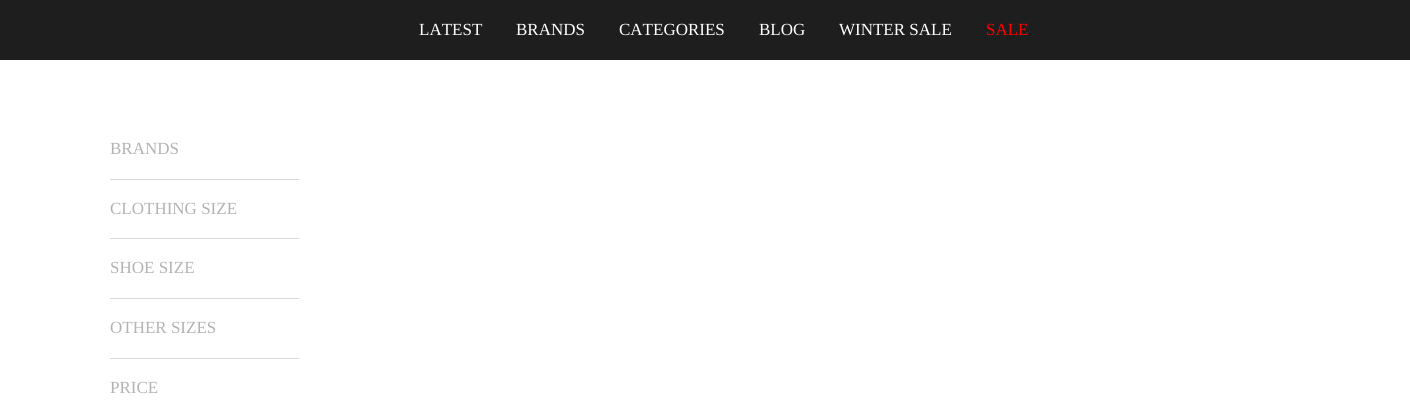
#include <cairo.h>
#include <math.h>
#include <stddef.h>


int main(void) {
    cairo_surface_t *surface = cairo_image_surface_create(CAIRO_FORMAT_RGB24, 1410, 410);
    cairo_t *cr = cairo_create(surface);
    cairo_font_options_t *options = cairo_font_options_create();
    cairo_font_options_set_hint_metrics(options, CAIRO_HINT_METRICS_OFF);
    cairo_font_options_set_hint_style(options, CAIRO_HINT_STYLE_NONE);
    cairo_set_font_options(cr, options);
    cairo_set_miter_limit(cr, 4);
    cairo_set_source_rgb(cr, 1, 1, 1);
    cairo_paint(cr);
    cairo_set_source_rgb(cr, 0.118, 0.118, 0.118);
    cairo_rectangle(cr, 0, 0, 1410, 60);
    cairo_fill(cr);
    cairo_select_font_face(cr, "Liberation Serif", CAIRO_FONT_SLANT_NORMAL, CAIRO_FONT_WEIGHT_NORMAL);
    cairo_set_font_size(cr, 17);
    cairo_set_source_rgb(cr, 1, 1, 1);
    cairo_move_to(cr, 419, 35);
    cairo_show_text(cr, "LATEST");
    cairo_move_to(cr, 516, 35);
    cairo_show_text(cr, "BRANDS");
    cairo_move_to(cr, 619, 35);
    cairo_show_text(cr, "CATEGORIES");
    cairo_move_to(cr, 759, 35);
    cairo_show_text(cr, "BLOG");
    cairo_move_to(cr, 839, 35);
    cairo_show_text(cr, "WINTER SALE");
    cairo_set_source_rgb(cr, 0.996, 0, 0);
    cairo_move_to(cr, 986, 35);
    cairo_show_text(cr, "SALE");
    cairo_set_source_rgb(cr, 0.702, 0.702, 0.702);
    cairo_move_to(cr, 110, 154);
    cairo_show_text(cr, "BRANDS");
    cairo_set_source_rgb(cr, 0.851, 0.851, 0.851);
    cairo_rectangle(cr, 110, 179, 189, 1);
    cairo_fill(cr);
    cairo_set_source_rgb(cr, 0.702, 0.702, 0.702);
    cairo_move_to(cr, 110, 214);
    cairo_show_text(cr, "CLOTHING SIZE");
    cairo_set_source_rgb(cr, 0.851, 0.851, 0.851);
    cairo_rectangle(cr, 110, 238, 189, 1);
    cairo_fill(cr);
    cairo_set_source_rgb(cr, 0.702, 0.702, 0.702);
    cairo_move_to(cr, 110, 273);
    cairo_show_text(cr, "SHOE SIZE");
    cairo_set_source_rgb(cr, 0.851, 0.851, 0.851);
    cairo_rectangle(cr, 110, 298, 189, 1);
    cairo_fill(cr);
    cairo_set_source_rgb(cr, 0.702, 0.702, 0.702);
    cairo_move_to(cr, 110, 333);
    cairo_show_text(cr, "OTHER SIZES");
    cairo_set_source_rgb(cr, 0.851, 0.851, 0.851);
    cairo_rectangle(cr, 110, 358, 189, 1);
    cairo_fill(cr);
    cairo_set_source_rgb(cr, 0.702, 0.702, 0.702);
    cairo_move_to(cr, 110, 393);
    cairo_show_text(cr, "PRICE");
    cairo_surface_write_to_png(surface, "page.png");
    cairo_font_options_destroy(options);
    cairo_destroy(cr);
    cairo_surface_destroy(surface);
    return 0;
}
